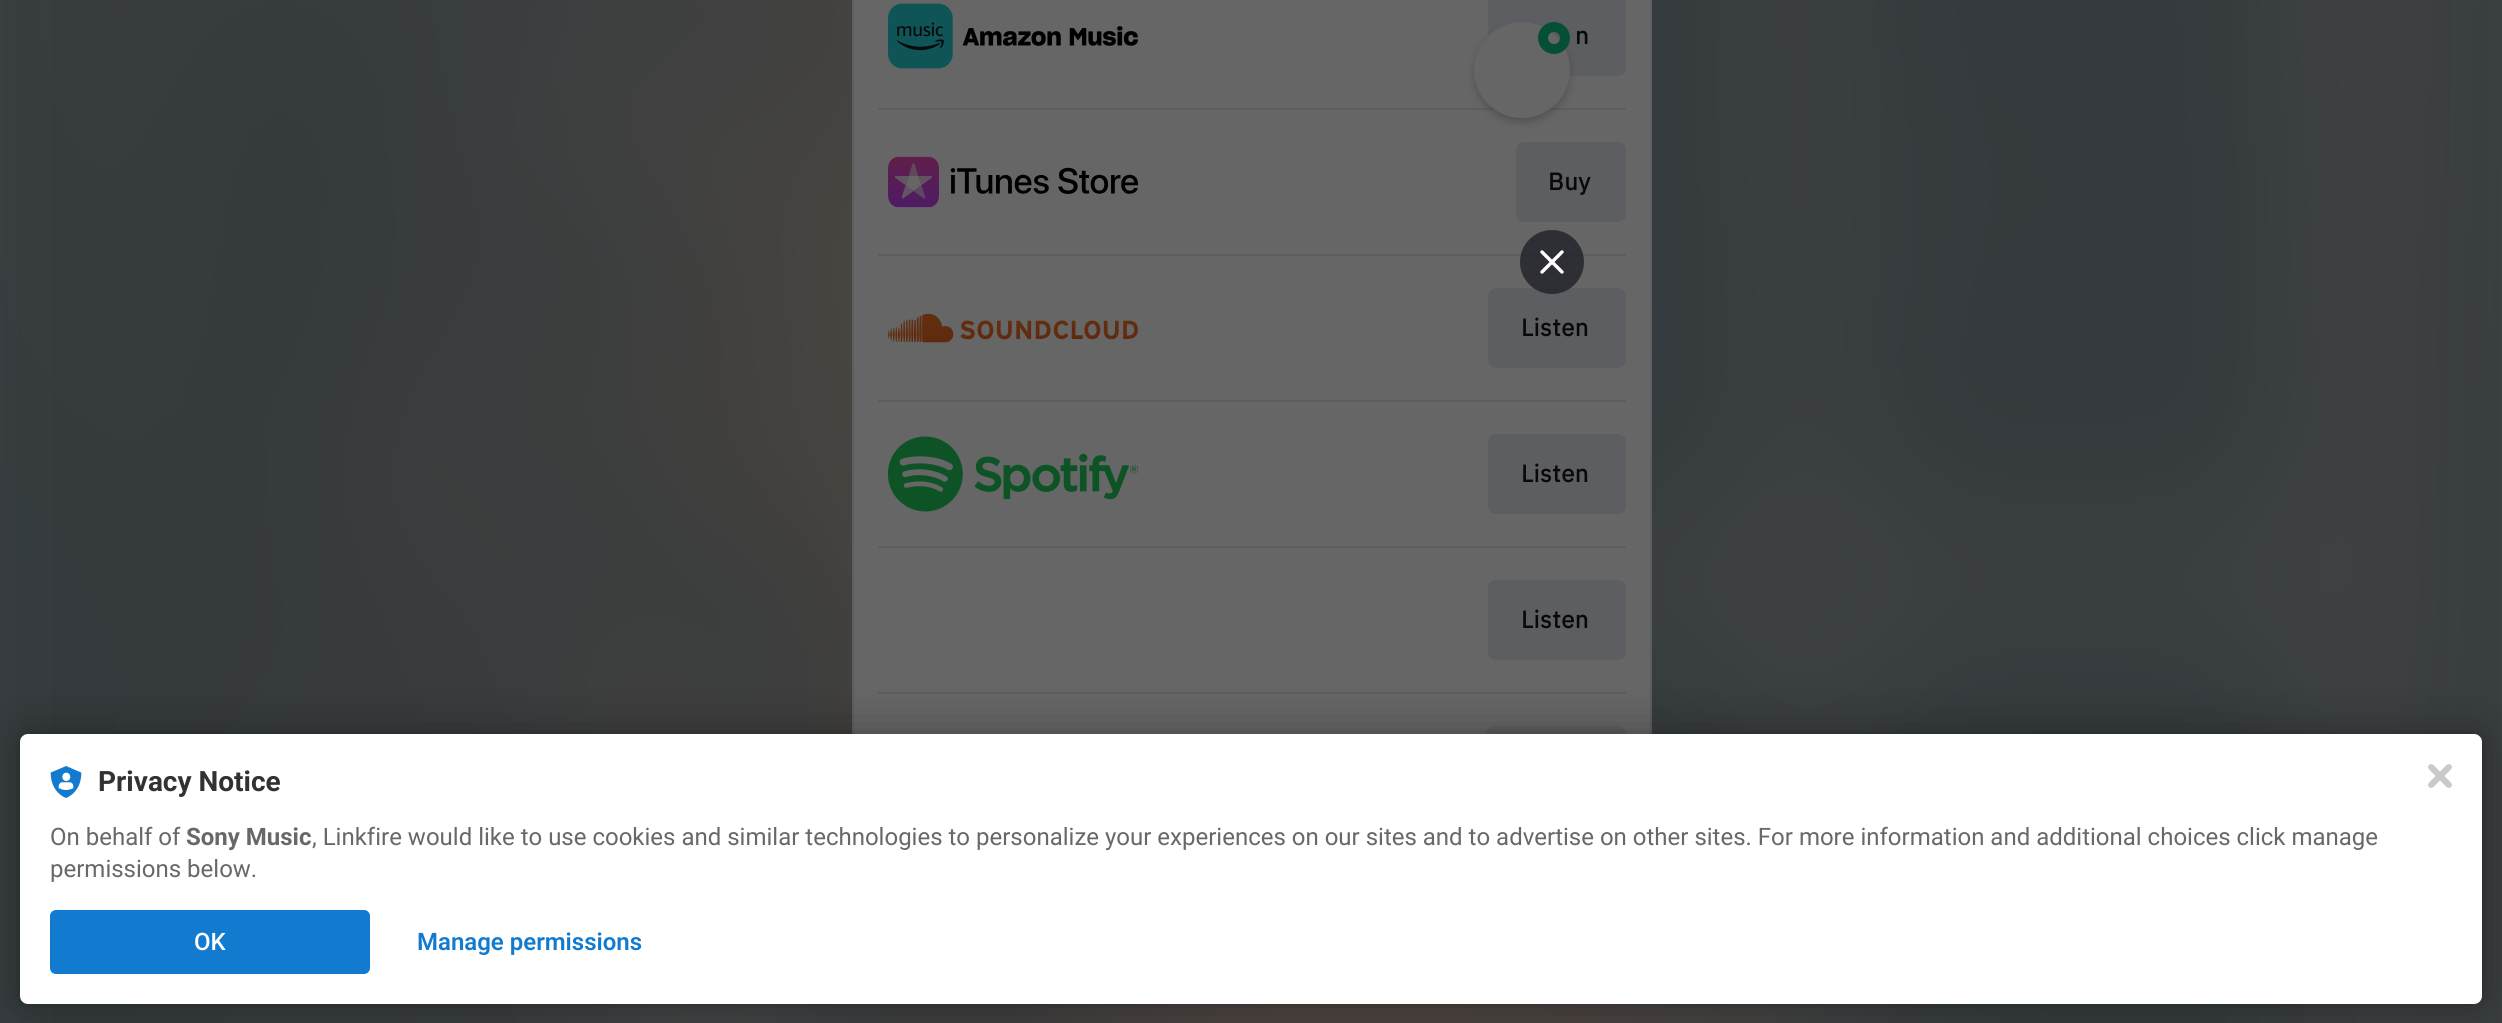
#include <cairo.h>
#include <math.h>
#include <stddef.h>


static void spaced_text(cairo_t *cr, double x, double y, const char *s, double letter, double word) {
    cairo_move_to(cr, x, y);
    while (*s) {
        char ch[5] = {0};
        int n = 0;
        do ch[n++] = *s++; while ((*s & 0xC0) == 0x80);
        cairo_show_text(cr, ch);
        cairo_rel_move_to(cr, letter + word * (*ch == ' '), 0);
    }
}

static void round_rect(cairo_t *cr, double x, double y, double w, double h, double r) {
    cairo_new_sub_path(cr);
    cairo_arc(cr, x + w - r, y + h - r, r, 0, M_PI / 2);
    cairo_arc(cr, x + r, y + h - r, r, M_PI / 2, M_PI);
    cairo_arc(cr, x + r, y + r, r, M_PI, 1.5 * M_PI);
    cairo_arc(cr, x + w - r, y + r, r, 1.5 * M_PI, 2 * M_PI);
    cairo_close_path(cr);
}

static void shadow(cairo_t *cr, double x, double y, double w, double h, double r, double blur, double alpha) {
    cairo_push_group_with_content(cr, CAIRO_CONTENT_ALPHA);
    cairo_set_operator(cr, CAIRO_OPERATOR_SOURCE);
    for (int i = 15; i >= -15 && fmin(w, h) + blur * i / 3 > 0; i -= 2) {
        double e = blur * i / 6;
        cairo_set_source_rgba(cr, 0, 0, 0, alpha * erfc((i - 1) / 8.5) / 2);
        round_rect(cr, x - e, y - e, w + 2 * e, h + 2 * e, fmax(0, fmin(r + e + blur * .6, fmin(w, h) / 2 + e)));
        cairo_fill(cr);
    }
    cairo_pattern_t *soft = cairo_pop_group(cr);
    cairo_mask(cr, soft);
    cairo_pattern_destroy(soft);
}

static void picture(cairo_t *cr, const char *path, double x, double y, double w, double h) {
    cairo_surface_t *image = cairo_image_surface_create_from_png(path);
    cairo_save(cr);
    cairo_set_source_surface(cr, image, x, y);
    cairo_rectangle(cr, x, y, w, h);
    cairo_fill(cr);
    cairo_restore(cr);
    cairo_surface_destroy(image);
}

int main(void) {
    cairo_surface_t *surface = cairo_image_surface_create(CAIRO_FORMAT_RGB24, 2502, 1023);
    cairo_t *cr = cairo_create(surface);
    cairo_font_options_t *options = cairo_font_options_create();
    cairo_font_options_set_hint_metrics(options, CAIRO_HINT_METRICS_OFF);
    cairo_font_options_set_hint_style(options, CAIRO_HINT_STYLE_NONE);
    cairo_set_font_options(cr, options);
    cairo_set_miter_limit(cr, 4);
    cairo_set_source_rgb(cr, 0.4, 0.4, 0.4);
    cairo_paint(cr);
    picture(cr, "img1.png", 0, 0, 2502, 1023);
    cairo_rectangle(cr, 853, -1, 798, 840);
    cairo_set_source_rgb(cr, 0.361, 0.369, 0.38);
    cairo_stroke(cr);
    cairo_set_source_rgb(cr, 0.4, 0.4, 0.4);
    cairo_rectangle(cr, 854, 0, 796, 734);
    cairo_fill(cr);
    cairo_set_source_rgb(cr, 0.361, 0.369, 0.38);
    round_rect(cr, 1488, -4, 138, 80, 8);
    cairo_fill(cr);
    cairo_rectangle(cr, 878, 108, 748, 2);
    cairo_fill(cr);
    cairo_set_source_rgb(cr, 0, 0, 0);
    shadow(cr, 1474, 26, 96, 96, 48, 4, 0.2);
    cairo_set_source_rgb(cr, 0.4, 0.4, 0.4);
    cairo_arc(cr, 1522, 70, 48, 0, 2 * M_PI);
    cairo_fill(cr);
    cairo_arc(cr, 1554, 38, 11, 0, 2 * M_PI);
    cairo_set_source_rgb(cr, 0.02, 0.31, 0.212);
    cairo_set_line_width(cr, 10);
    cairo_stroke(cr);
    cairo_set_source_rgb(cr, 0.361, 0.369, 0.38);
    cairo_rectangle(cr, 878, 254, 748, 2);
    cairo_fill(cr);
    round_rect(cr, 1488, 288, 138, 80, 8);
    cairo_fill(cr);
    cairo_set_source_rgba(cr, 0.094, 0.09, 0.129, 0.7);
    cairo_arc(cr, 1552, 262, 32, 0, 2 * M_PI);
    cairo_fill(cr);
    cairo_new_path(cr);
    cairo_move_to(cr, 1542, 252);
    cairo_line_to(cr, 1562, 272);
    cairo_move_to(cr, 1542, 272);
    cairo_line_to(cr, 1562, 252);
    cairo_set_source_rgb(cr, 1, 1, 1);
    cairo_set_line_width(cr, 3.4);
    cairo_set_line_cap(cr, CAIRO_LINE_CAP_ROUND);
    cairo_set_line_join(cr, CAIRO_LINE_JOIN_ROUND);
    cairo_stroke(cr);
    picture(cr, "img2.png", 888, 3, 250, 66);
    cairo_select_font_face(cr, "IBM Plex Sans", CAIRO_FONT_SLANT_NORMAL, CAIRO_FONT_WEIGHT_BOLD);
    cairo_set_font_size(cr, 24);
    cairo_set_source_rgb(cr, 0.039, 0.035, 0.051);
    spaced_text(cr, 1575, 44, "n", 0.5, 0);
    picture(cr, "img3.png", 888, 156, 250, 52);
    cairo_set_source_rgb(cr, 0.361, 0.369, 0.38);
    round_rect(cr, 1516, 142, 110, 80, 8);
    cairo_fill(cr);
    cairo_set_source_rgb(cr, 0.039, 0.035, 0.051);
    spaced_text(cr, 1548, 190, "Buy", 0.5, 0);
    picture(cr, "img4.png", 888, 313, 250, 30);
    spaced_text(cr, 1521, 336, "Listen", 0.5, 0);
    cairo_set_source_rgb(cr, 0.361, 0.369, 0.38);
    cairo_rectangle(cr, 878, 400, 748, 2);
    cairo_fill(cr);
    picture(cr, "img5.png", 888, 436, 250, 76);
    round_rect(cr, 1488, 434, 138, 80, 8);
    cairo_fill(cr);
    cairo_set_source_rgb(cr, 0.039, 0.035, 0.051);
    spaced_text(cr, 1521, 482, "Listen", 0.5, 0);
    cairo_set_source_rgb(cr, 0.361, 0.369, 0.38);
    cairo_rectangle(cr, 878, 546, 748, 2);
    cairo_fill(cr);
    round_rect(cr, 1488, 580, 138, 80, 8);
    cairo_fill(cr);
    cairo_set_source_rgb(cr, 0.039, 0.035, 0.051);
    spaced_text(cr, 1521, 628, "Listen", 0.5, 0);
    cairo_set_source_rgb(cr, 0.361, 0.369, 0.38);
    cairo_rectangle(cr, 878, 692, 748, 2);
    cairo_fill(cr);
    round_rect(cr, 1486, 726, 140, 80, 8);
    cairo_fill(cr);
    cairo_set_source_rgb(cr, 0, 0, 0);
    shadow(cr, 20, 734, 2462, 270, 8, 4, 0.12);
    shadow(cr, 20, 734, 2462, 270, 8, 24, 0.3);
    cairo_set_source_rgb(cr, 1, 1, 1);
    round_rect(cr, 20, 734, 2462, 270, 8);
    cairo_fill(cr);
    picture(cr, "img6.png", 50, 766, 32, 32);
    cairo_select_font_face(cr, "Roboto", CAIRO_FONT_SLANT_NORMAL, CAIRO_FONT_WEIGHT_BOLD);
    cairo_set_font_size(cr, 28);
    cairo_set_source_rgb(cr, 0.196, 0.196, 0.196);
    cairo_move_to(cr, 98, 791);
    cairo_show_text(cr, "Privacy Notice");
    cairo_select_font_face(cr, "Roboto", CAIRO_FONT_SLANT_NORMAL, CAIRO_FONT_WEIGHT_NORMAL);
    cairo_set_font_size(cr, 24);
    cairo_set_source_rgb(cr, 0.408, 0.408, 0.408);
    cairo_move_to(cr, 50, 845);
    cairo_show_text(cr, "On behalf of");
    cairo_select_font_face(cr, "Roboto", CAIRO_FONT_SLANT_NORMAL, CAIRO_FONT_WEIGHT_BOLD);
    cairo_move_to(cr, 186, 845);
    cairo_show_text(cr, "Sony Music");
    cairo_select_font_face(cr, "Roboto", CAIRO_FONT_SLANT_NORMAL, CAIRO_FONT_WEIGHT_NORMAL);
    cairo_move_to(cr, 312, 845);
    cairo_show_text(cr, ", Linkfire would like to use cookies and similar technologies to personalize your experiences on our sites and to advertise on other sites. For more information and additional choices click manage");
    cairo_move_to(cr, 50, 877);
    cairo_show_text(cr, "permissions below.");
    cairo_set_source_rgb(cr, 0.075, 0.482, 0.812);
    round_rect(cr, 50, 910, 320, 64, 6);
    cairo_fill(cr);
    cairo_select_font_face(cr, "Roboto Medium", CAIRO_FONT_SLANT_NORMAL, CAIRO_FONT_WEIGHT_NORMAL);
    cairo_set_source_rgb(cr, 1, 1, 1);
    cairo_move_to(cr, 194, 950);
    cairo_show_text(cr, "OK");
    cairo_select_font_face(cr, "Roboto SemiBold", CAIRO_FONT_SLANT_NORMAL, CAIRO_FONT_WEIGHT_NORMAL);
    cairo_set_source_rgb(cr, 0.075, 0.482, 0.812);
    cairo_move_to(cr, 417, 950);
    cairo_show_text(cr, "Manage permissions");
    picture(cr, "img7.png", 2428, 764, 24, 24);
    cairo_surface_write_to_png(surface, "page.png");
    cairo_font_options_destroy(options);
    cairo_destroy(cr);
    cairo_surface_destroy(surface);
    return 0;
}
